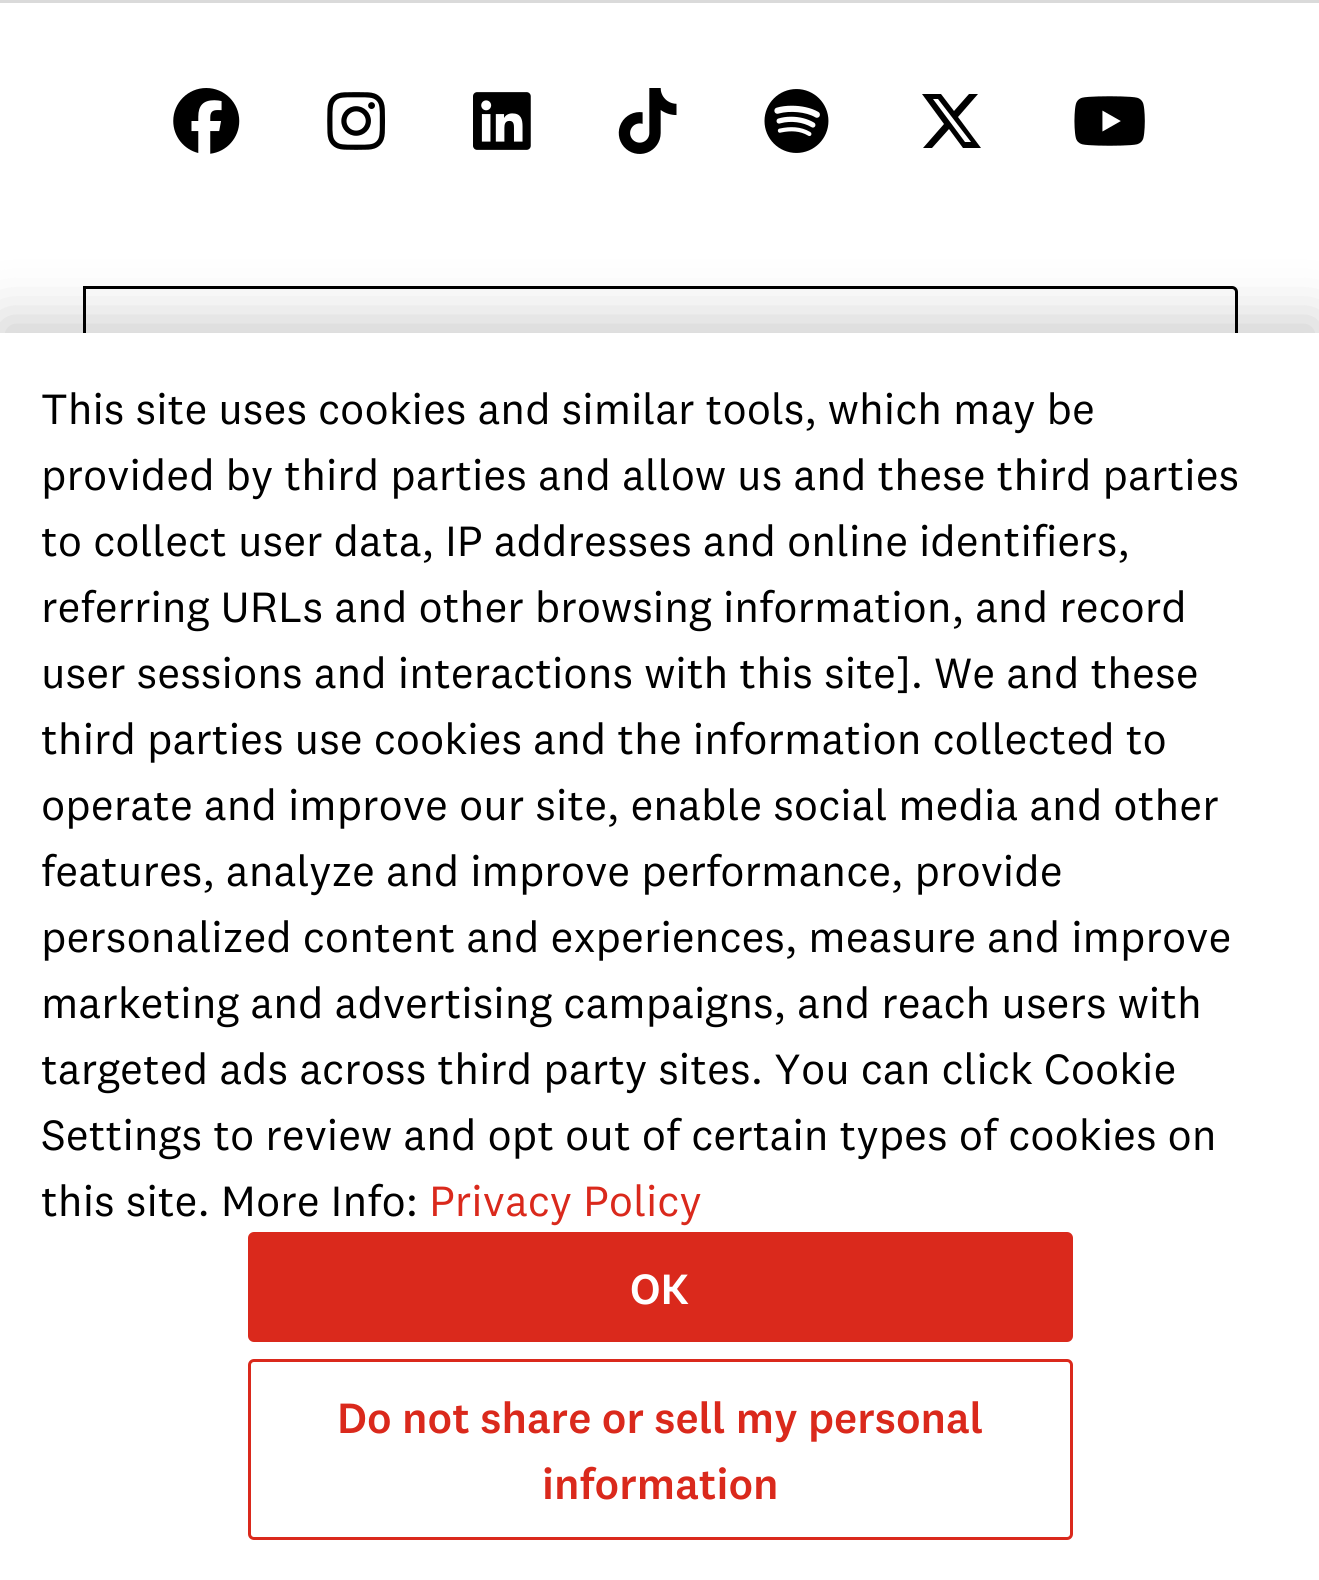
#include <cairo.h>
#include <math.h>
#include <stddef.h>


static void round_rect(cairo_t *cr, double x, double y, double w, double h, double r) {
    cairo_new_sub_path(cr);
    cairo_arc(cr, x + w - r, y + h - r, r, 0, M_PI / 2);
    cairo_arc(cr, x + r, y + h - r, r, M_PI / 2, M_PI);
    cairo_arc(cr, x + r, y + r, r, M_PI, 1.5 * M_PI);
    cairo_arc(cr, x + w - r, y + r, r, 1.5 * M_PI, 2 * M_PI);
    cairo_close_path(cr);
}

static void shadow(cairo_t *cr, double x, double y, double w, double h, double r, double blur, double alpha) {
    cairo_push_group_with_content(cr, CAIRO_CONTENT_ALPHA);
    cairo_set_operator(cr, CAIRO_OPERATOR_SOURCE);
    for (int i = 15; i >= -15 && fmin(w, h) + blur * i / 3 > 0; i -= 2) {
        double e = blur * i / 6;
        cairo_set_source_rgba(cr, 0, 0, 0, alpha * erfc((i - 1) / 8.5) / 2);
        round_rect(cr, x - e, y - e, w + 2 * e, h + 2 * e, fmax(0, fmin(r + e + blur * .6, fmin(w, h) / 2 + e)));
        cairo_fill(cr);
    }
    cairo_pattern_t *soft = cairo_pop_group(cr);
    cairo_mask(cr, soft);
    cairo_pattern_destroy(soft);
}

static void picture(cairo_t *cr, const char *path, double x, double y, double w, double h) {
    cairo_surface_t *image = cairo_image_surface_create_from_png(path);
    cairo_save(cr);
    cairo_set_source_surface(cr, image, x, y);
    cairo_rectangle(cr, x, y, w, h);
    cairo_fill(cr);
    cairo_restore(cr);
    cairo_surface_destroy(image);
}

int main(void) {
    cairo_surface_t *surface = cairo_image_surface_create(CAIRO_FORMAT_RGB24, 1319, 1580);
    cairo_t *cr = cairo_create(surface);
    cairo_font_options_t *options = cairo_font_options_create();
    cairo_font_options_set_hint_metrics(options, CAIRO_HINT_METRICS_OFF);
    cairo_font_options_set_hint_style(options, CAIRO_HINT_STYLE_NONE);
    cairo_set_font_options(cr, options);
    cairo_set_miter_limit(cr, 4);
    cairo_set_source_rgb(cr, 1, 1, 1);
    cairo_paint(cr);
    cairo_set_source_rgb(cr, 0.855, 0.855, 0.855);
    cairo_rectangle(cr, 0, 0, 1319, 3);
    cairo_fill(cr);
    picture(cr, "img1.png", 173, 88, 67, 66);
    picture(cr, "img2.png", 327, 92, 58, 58);
    picture(cr, "img3.png", 473, 92, 58, 58);
    picture(cr, "img4.png", 618, 88, 59, 66);
    picture(cr, "img5.png", 764, 89, 65, 64);
    cairo_set_source_rgb(cr, 0, 0, 0);
    cairo_new_path(cr);
    cairo_move_to(cr, 969, 94);
    cairo_line_to(cr, 978, 94);
    cairo_line_to(cr, 958, 117);
    cairo_line_to(cr, 981, 148);
    cairo_line_to(cr, 963, 148);
    cairo_line_to(cr, 949, 129);
    cairo_line_to(cr, 932, 148);
    cairo_line_to(cr, 923, 148);
    cairo_line_to(cr, 944, 124);
    cairo_line_to(cr, 922, 94);
    cairo_line_to(cr, 941, 94);
    cairo_line_to(cr, 954, 111);
    cairo_close_path(cr);
    cairo_move_to(cr, 965, 142);
    cairo_line_to(cr, 971, 142);
    cairo_line_to(cr, 938, 99);
    cairo_line_to(cr, 933, 99);
    cairo_close_path(cr);
    cairo_fill(cr);
    picture(cr, "img6.png", 1074, 96, 71, 50);
    cairo_new_path(cr);
    cairo_move_to(cr, 84.5, 287.5);
    cairo_line_to(cr, 1232, 287.5);
    cairo_curve_to(cr, 1234.5, 287.5, 1236.5, 289.5, 1236.5, 292);
    cairo_line_to(cr, 1236.5, 440);
    cairo_curve_to(cr, 1236.5, 442.5, 1234.5, 444.5, 1232, 444.5);
    cairo_line_to(cr, 84.5, 444.5);
    cairo_close_path(cr);
    cairo_set_line_width(cr, 3);
    cairo_stroke(cr);
    cairo_set_source_rgb(cr, 0, 0, 0);
    shadow(cr, 0, 319, 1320, 1249, 0, 27.5, 0.2);
    cairo_set_source_rgb(cr, 1, 1, 1);
    cairo_rectangle(cr, 0, 333, 1319, 1247);
    cairo_fill(cr);
    cairo_select_font_face(cr, "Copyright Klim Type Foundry", CAIRO_FONT_SLANT_NORMAL, CAIRO_FONT_WEIGHT_NORMAL);
    cairo_set_font_size(cr, 44);
    cairo_set_source_rgb(cr, 0, 0, 0);
    cairo_move_to(cr, 41, 424);
    cairo_show_text(cr, "This site uses cookies and similar tools, which may be");
    cairo_move_to(cr, 41, 490);
    cairo_show_text(cr, "provided by third parties and allow us and these third parties");
    cairo_move_to(cr, 41, 556);
    cairo_show_text(cr, "to collect user data, IP addresses and online identifiers,");
    cairo_move_to(cr, 41, 622);
    cairo_show_text(cr, "referring URLs and other browsing information, and record");
    cairo_move_to(cr, 41, 688);
    cairo_show_text(cr, "user sessions and interactions with this site]. We and these");
    cairo_move_to(cr, 41, 754);
    cairo_show_text(cr, "third parties use cookies and the information collected to");
    cairo_move_to(cr, 41, 820);
    cairo_show_text(cr, "operate and improve our site, enable social media and other");
    cairo_move_to(cr, 41, 886);
    cairo_show_text(cr, "features, analyze and improve performance, provide");
    cairo_move_to(cr, 41, 952);
    cairo_show_text(cr, "personalized content and experiences, measure and improve");
    cairo_move_to(cr, 41, 1018);
    cairo_show_text(cr, "marketing and advertising campaigns, and reach users with");
    cairo_move_to(cr, 41, 1084);
    cairo_show_text(cr, "targeted ads across third party sites. You can click Cookie");
    cairo_move_to(cr, 41, 1150);
    cairo_show_text(cr, "Settings to review and opt out of certain types of cookies on");
    cairo_move_to(cr, 41, 1216);
    cairo_show_text(cr, "this site. More Info:");
    cairo_set_source_rgb(cr, 0.855, 0.161, 0.11);
    cairo_move_to(cr, 429, 1216);
    cairo_show_text(cr, "Privacy Policy");
    round_rect(cr, 248, 1232, 825, 110, 6);
    cairo_fill(cr);
    cairo_select_font_face(cr, "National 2 Medium", CAIRO_FONT_SLANT_NORMAL, CAIRO_FONT_WEIGHT_NORMAL);
    cairo_set_source_rgb(cr, 1, 1, 1);
    cairo_move_to(cr, 630, 1304);
    cairo_show_text(cr, "OK");
    round_rect(cr, 249.5, 1360.5, 822, 178, 4.5);
    cairo_set_source_rgb(cr, 0.855, 0.161, 0.11);
    cairo_stroke(cr);
    cairo_move_to(cr, 337, 1433);
    cairo_show_text(cr, "Do not share or sell my personal");
    cairo_move_to(cr, 542, 1499);
    cairo_show_text(cr, "information");
    cairo_surface_write_to_png(surface, "page.png");
    cairo_font_options_destroy(options);
    cairo_destroy(cr);
    cairo_surface_destroy(surface);
    return 0;
}
